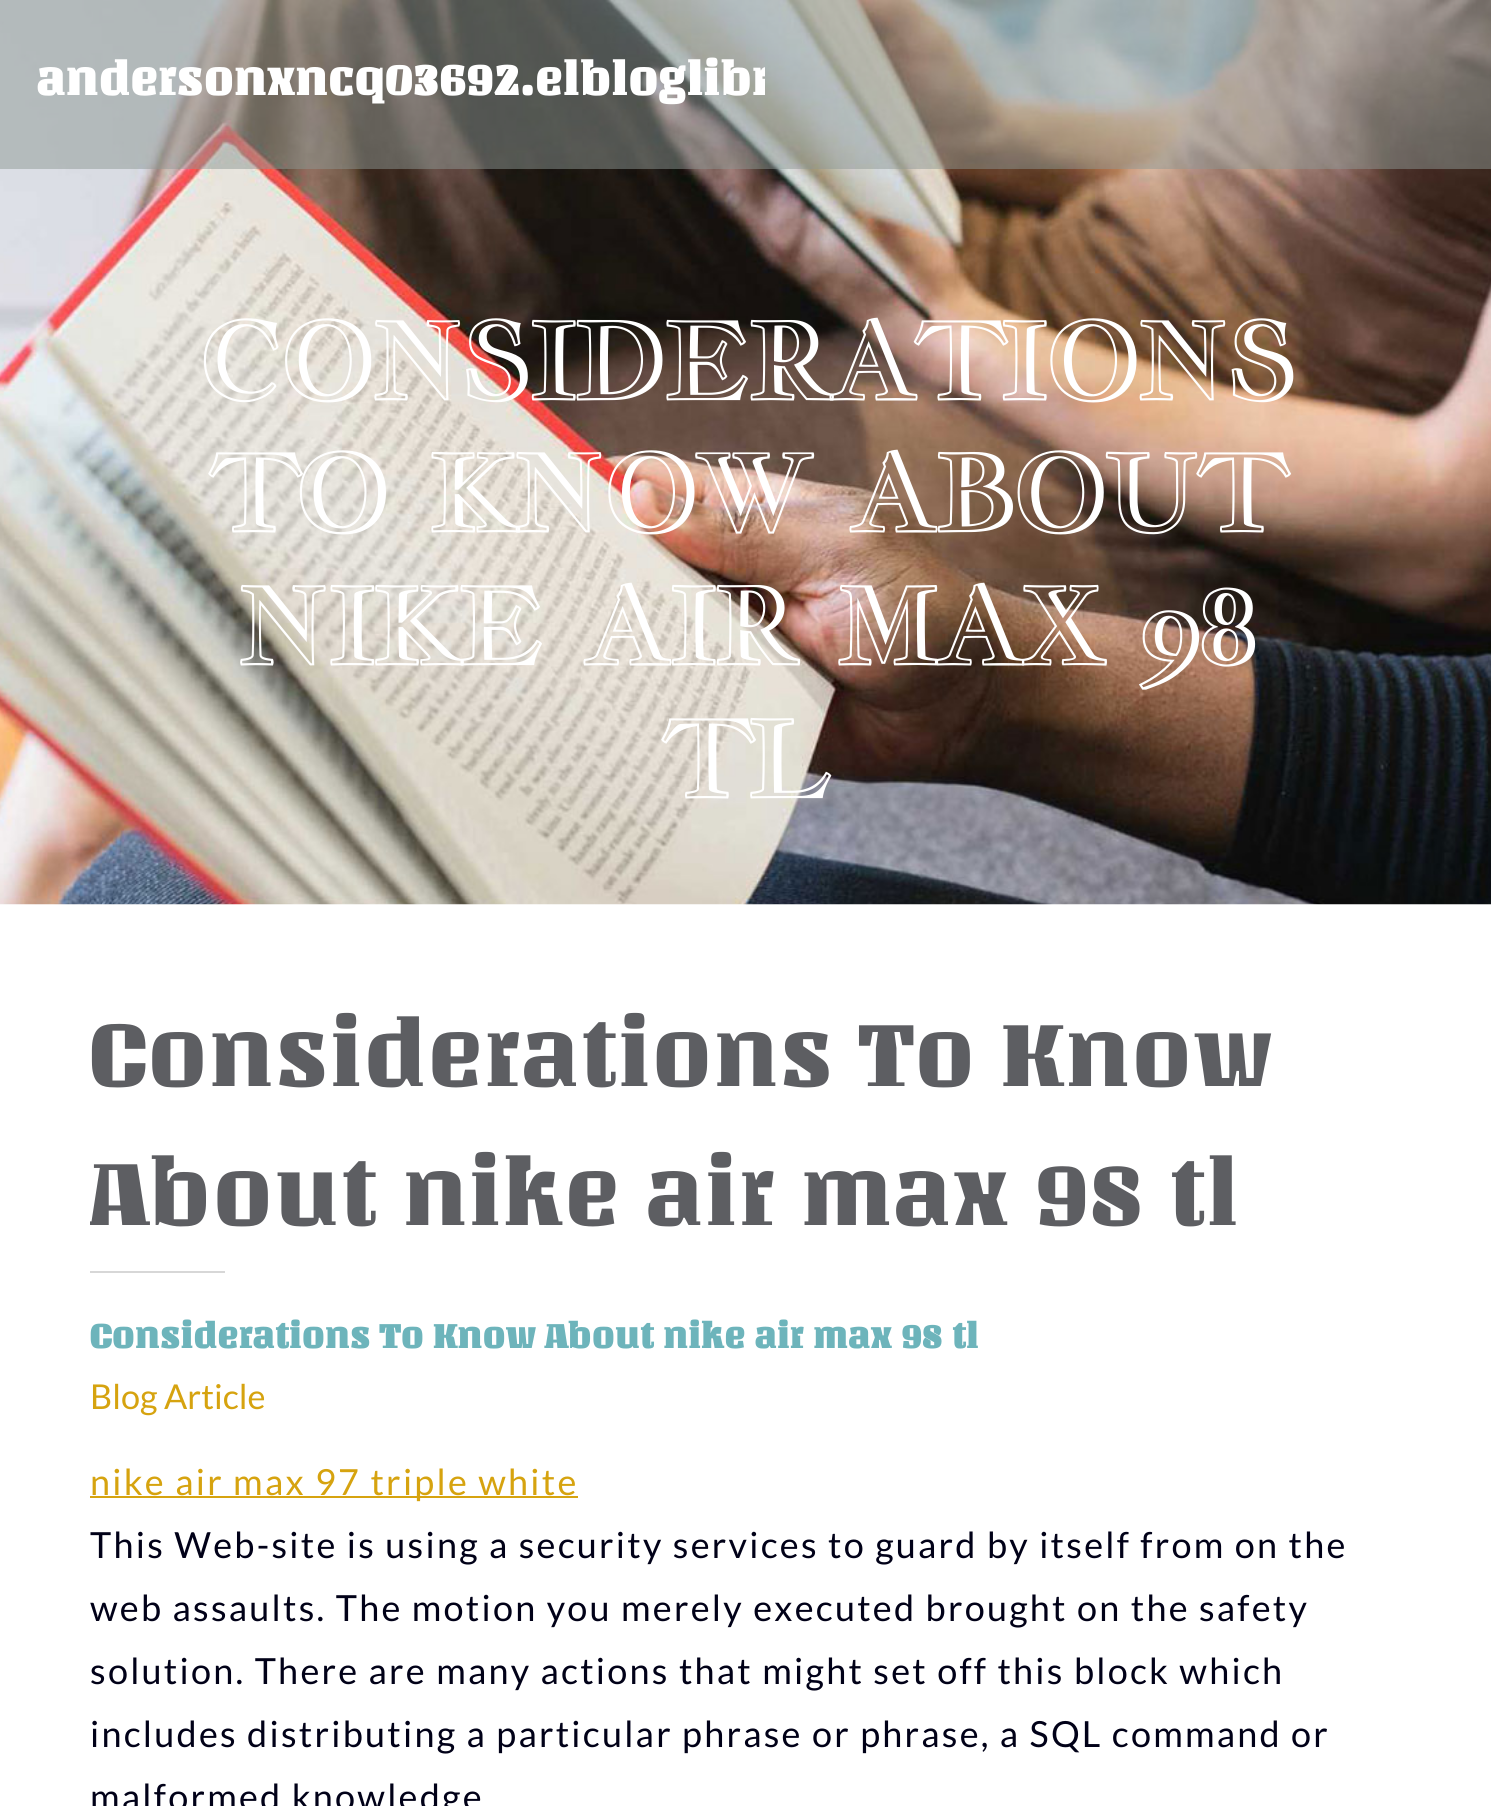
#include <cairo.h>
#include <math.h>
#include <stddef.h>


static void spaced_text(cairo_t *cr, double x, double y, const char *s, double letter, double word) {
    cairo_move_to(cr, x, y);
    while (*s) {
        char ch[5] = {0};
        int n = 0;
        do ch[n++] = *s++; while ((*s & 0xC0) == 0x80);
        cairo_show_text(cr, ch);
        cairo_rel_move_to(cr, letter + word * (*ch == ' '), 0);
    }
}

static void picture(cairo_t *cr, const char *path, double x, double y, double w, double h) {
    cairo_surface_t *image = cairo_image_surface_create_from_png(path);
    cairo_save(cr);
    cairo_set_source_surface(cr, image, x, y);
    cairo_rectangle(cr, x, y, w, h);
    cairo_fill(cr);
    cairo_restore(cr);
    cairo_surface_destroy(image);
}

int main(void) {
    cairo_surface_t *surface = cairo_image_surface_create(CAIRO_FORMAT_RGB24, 1491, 1806);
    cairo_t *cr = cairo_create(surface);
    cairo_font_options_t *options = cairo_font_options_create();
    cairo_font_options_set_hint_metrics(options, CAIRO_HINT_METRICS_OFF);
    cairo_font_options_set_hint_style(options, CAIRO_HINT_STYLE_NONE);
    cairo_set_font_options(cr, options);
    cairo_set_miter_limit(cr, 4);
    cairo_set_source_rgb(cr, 1, 1, 1);
    cairo_paint(cr);
    picture(cr, "img1.png", 0, 0, 1491, 905);
    cairo_set_source_rgba(cr, 0.557, 0.596, 0.584, 0.5);
    cairo_rectangle(cr, 0, 0, 1491, 169);
    cairo_fill(cr);
    cairo_save(cr);
    cairo_rectangle(cr, 27, 16, 738, 135);
    cairo_clip(cr);
    cairo_select_font_face(cr, "Unlock", CAIRO_FONT_SLANT_NORMAL, CAIRO_FONT_WEIGHT_BOLD);
    cairo_set_font_size(cr, 47.25);
    cairo_set_source_rgb(cr, 1, 1, 1);
    cairo_move_to(cr, 36, 95);
    cairo_show_text(cr, "andersonxncq03692.elbloglibr");
    cairo_restore(cr);
    cairo_select_font_face(cr, "Jacques Francois Shadow", CAIRO_FONT_SLANT_NORMAL, CAIRO_FONT_WEIGHT_NORMAL);
    cairo_set_font_size(cr, 105.75);
    cairo_set_source_rgb(cr, 1, 1, 1);
    spaced_text(cr, 198, 398, "CONSIDERATIONS", -4.5, 0);
    spaced_text(cr, 209, 530, "TO KNOW ABOUT", -4.5, 18);
    spaced_text(cr, 238, 663, "NIKE AIR MAX 98", -4.5, 18);
    spaced_text(cr, 662, 796, "TL", -4.5, 0);
    cairo_select_font_face(cr, "Unlock", CAIRO_FONT_SLANT_NORMAL, CAIRO_FONT_WEIGHT_NORMAL);
    cairo_set_font_size(cr, 95.6);
    cairo_set_source_rgb(cr, 0.365, 0.369, 0.384);
    cairo_move_to(cr, 90, 1086);
    cairo_show_text(cr, "Considerations To Know");
    cairo_save(cr);
    cairo_rectangle(cr, 90, 986, 1312, 288);
    cairo_clip(cr);
    cairo_move_to(cr, 90, 1225);
    cairo_show_text(cr, "About nike air max 98 tl");
    cairo_restore(cr);
    cairo_set_source_rgb(cr, 0.843, 0.843, 0.843);
    cairo_rectangle(cr, 90, 1271, 135, 2);
    cairo_fill(cr);
    cairo_select_font_face(cr, "Unlock", CAIRO_FONT_SLANT_NORMAL, CAIRO_FONT_WEIGHT_BOLD);
    cairo_set_font_size(cr, 36);
    cairo_set_source_rgb(cr, 0.427, 0.706, 0.733);
    cairo_move_to(cr, 90, 1348);
    cairo_show_text(cr, "Considerations To Know About nike air max 98 tl");
    cairo_select_font_face(cr, "Lato", CAIRO_FONT_SLANT_NORMAL, CAIRO_FONT_WEIGHT_NORMAL);
    cairo_set_font_size(cr, 34.25);
    cairo_set_source_rgb(cr, 0.839, 0.639, 0.059);
    cairo_move_to(cr, 90, 1409);
    cairo_show_text(cr, "Blog Article");
    cairo_rectangle(cr, 90, 1496, 488, 2);
    cairo_fill(cr);
    cairo_set_font_size(cr, 36);
    spaced_text(cr, 90, 1495, "nike air max 97 triple white", 2.25, 0);
    cairo_set_source_rgb(cr, 0.004, 0.004, 0.094);
    spaced_text(cr, 90, 1558, "This Web-site is using a security services to guard by itself from on the", 2.25, 0);
    spaced_text(cr, 90, 1621, "web assaults. The motion you merely executed brought on the safety", 2.25, 0);
    spaced_text(cr, 90, 1684, "solution. There are many actions that might set off this block which", 2.25, 0);
    spaced_text(cr, 90, 1747, "includes distributing a particular phrase or phrase, a SQL command or", 2.25, 0);
    spaced_text(cr, 90, 1810, "malformed knowledge", 2.25, 0);
    cairo_surface_write_to_png(surface, "page.png");
    cairo_font_options_destroy(options);
    cairo_destroy(cr);
    cairo_surface_destroy(surface);
    return 0;
}
